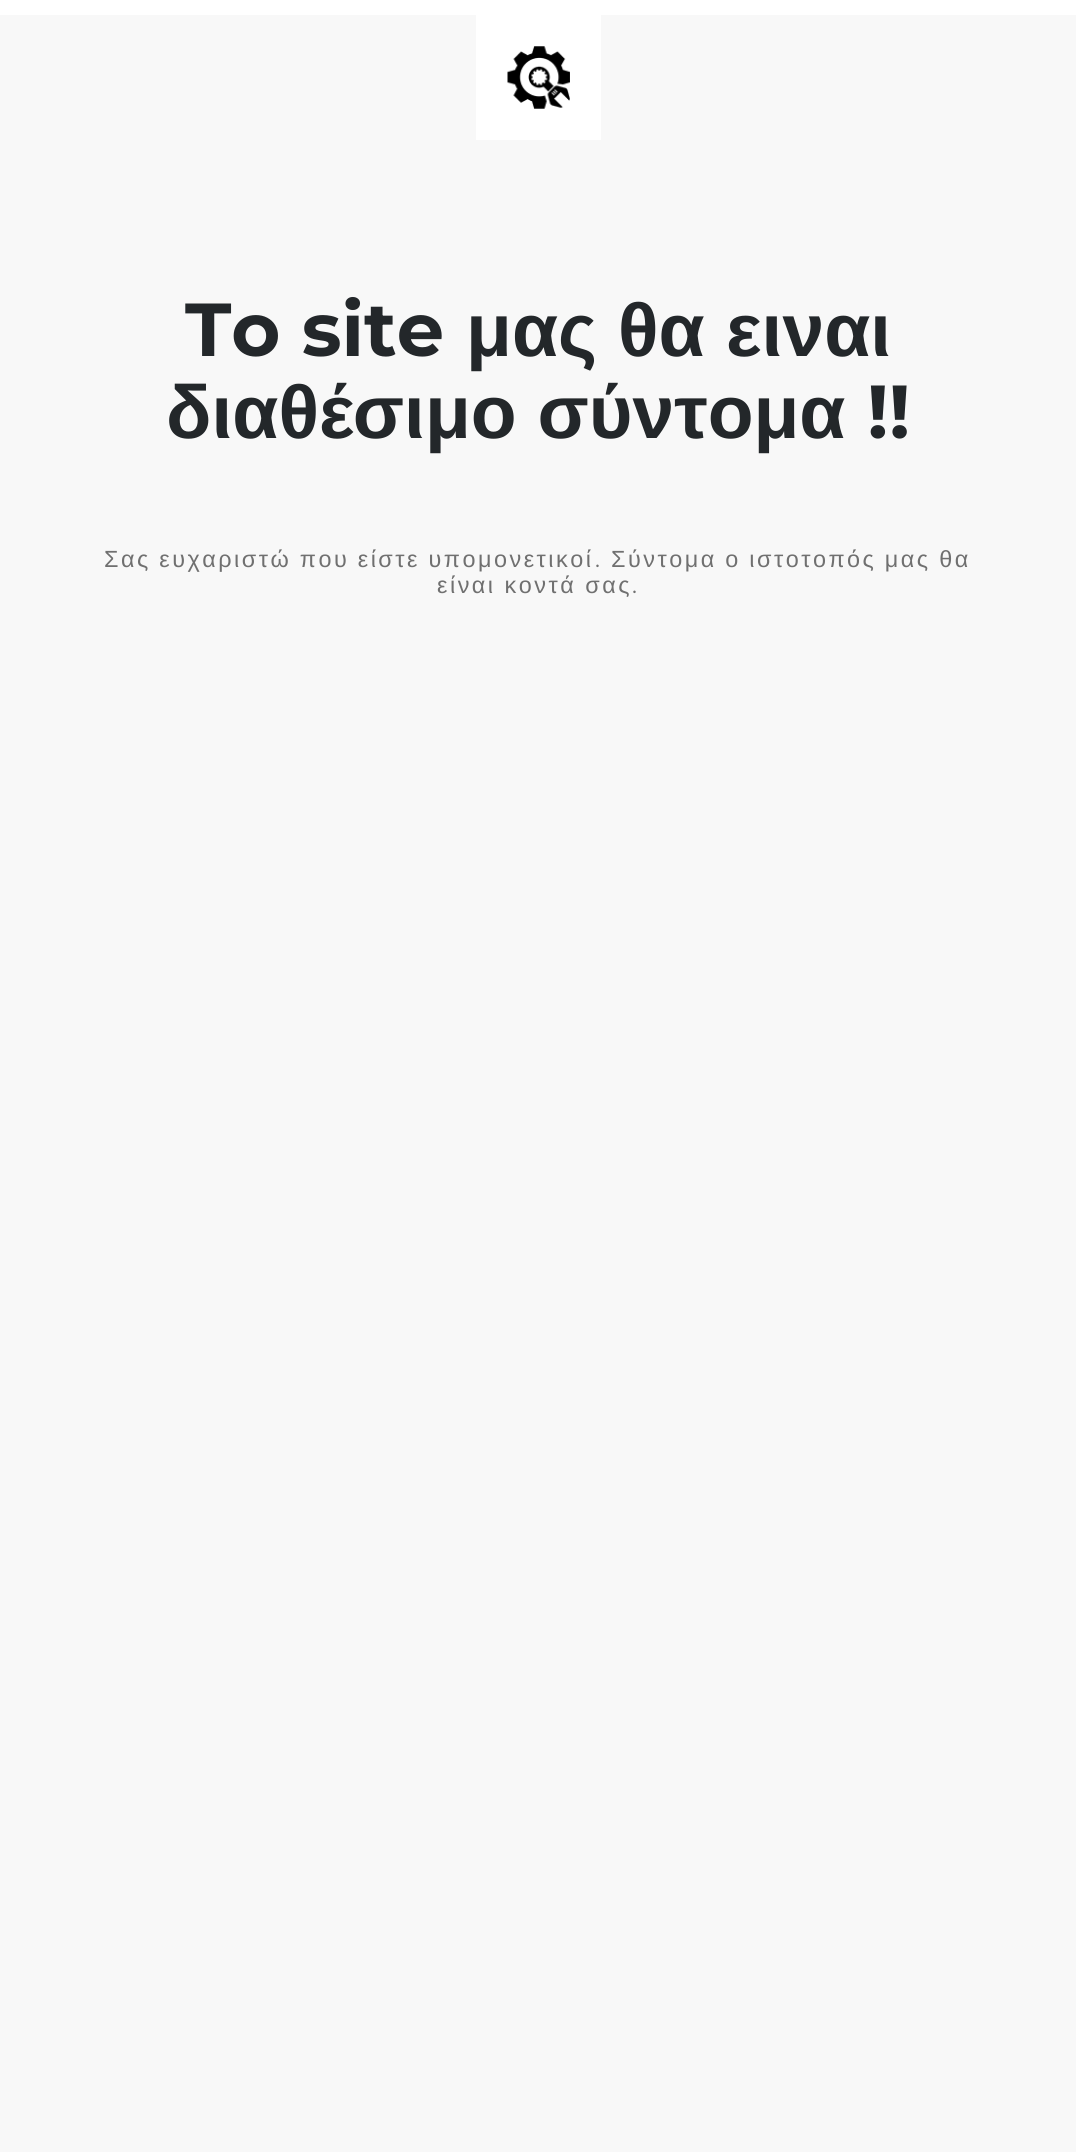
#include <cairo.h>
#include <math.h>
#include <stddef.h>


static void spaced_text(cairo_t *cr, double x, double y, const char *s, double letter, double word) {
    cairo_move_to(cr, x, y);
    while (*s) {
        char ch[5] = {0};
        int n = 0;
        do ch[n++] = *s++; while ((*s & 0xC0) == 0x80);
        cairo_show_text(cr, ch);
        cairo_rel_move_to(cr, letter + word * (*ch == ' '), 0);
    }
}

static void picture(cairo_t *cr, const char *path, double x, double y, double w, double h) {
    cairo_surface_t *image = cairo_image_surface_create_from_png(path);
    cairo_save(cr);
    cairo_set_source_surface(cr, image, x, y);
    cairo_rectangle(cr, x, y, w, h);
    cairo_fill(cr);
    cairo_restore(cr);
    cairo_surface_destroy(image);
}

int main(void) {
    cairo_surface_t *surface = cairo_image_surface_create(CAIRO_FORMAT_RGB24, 1076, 2152);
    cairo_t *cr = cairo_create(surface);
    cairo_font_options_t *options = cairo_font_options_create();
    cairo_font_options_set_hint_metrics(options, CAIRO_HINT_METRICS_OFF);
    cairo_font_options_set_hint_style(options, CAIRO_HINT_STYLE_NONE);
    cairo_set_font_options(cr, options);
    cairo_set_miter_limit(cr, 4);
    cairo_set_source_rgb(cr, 0.969, 0.969, 0.969);
    cairo_paint(cr);
    cairo_set_source_rgb(cr, 1, 1, 1);
    cairo_rectangle(cr, 0, 0, 1076, 15);
    cairo_fill(cr);
    cairo_rectangle(cr, 476, 15, 125, 125);
    cairo_fill(cr);
    picture(cr, "img1.png", 507, 46, 63, 63);
    cairo_select_font_face(cr, "Montserrat Thin", CAIRO_FONT_SLANT_NORMAL, CAIRO_FONT_WEIGHT_NORMAL);
    cairo_set_font_size(cr, 75);
    cairo_set_source_rgb(cr, 0.137, 0.153, 0.165);
    cairo_move_to(cr, 185, 356);
    cairo_show_text(cr, "To site");
    cairo_select_font_face(cr, "Liberation Sans", CAIRO_FONT_SLANT_NORMAL, CAIRO_FONT_WEIGHT_BOLD);
    cairo_move_to(cr, 466, 356);
    cairo_show_text(cr, "μας");
    cairo_move_to(cr, 618, 356);
    cairo_show_text(cr, "θα");
    cairo_move_to(cr, 726, 356);
    cairo_show_text(cr, "ειναι");
    cairo_move_to(cr, 166, 438);
    cairo_show_text(cr, "διαθέσιμο σύντομα");
    cairo_select_font_face(cr, "Montserrat Thin", CAIRO_FONT_SLANT_NORMAL, CAIRO_FONT_WEIGHT_NORMAL);
    cairo_move_to(cr, 867, 438);
    cairo_show_text(cr, "!!");
    cairo_select_font_face(cr, "Liberation Sans", CAIRO_FONT_SLANT_NORMAL, CAIRO_FONT_WEIGHT_NORMAL);
    cairo_set_font_size(cr, 23.4);
    cairo_set_source_rgb(cr, 0.439, 0.439, 0.439);
    spaced_text(cr, 104, 567, "Σας ευχαριστώ που είστε υπομονετικοί", 2.5, -0.5);
    cairo_select_font_face(cr, "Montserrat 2 Thin", CAIRO_FONT_SLANT_NORMAL, CAIRO_FONT_WEIGHT_NORMAL);
    spaced_text(cr, 595, 567, ".", 2.5, 0);
    cairo_select_font_face(cr, "Liberation Sans", CAIRO_FONT_SLANT_NORMAL, CAIRO_FONT_WEIGHT_NORMAL);
    spaced_text(cr, 611, 567, "Σύντομα ο ιστοτοπός μας θα", 2.5, -0.5);
    spaced_text(cr, 437, 593, "είναι κοντά σας", 2.5, 0);
    cairo_select_font_face(cr, "Montserrat 2 Thin", CAIRO_FONT_SLANT_NORMAL, CAIRO_FONT_WEIGHT_NORMAL);
    spaced_text(cr, 632, 593, ".", 2.5, 0);
    cairo_surface_write_to_png(surface, "page.png");
    cairo_font_options_destroy(options);
    cairo_destroy(cr);
    cairo_surface_destroy(surface);
    return 0;
}
